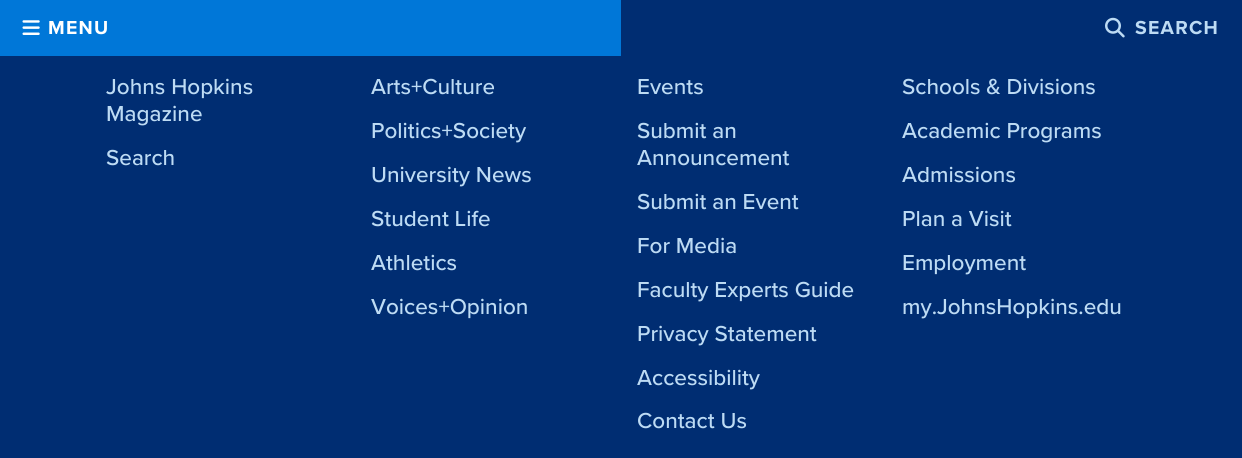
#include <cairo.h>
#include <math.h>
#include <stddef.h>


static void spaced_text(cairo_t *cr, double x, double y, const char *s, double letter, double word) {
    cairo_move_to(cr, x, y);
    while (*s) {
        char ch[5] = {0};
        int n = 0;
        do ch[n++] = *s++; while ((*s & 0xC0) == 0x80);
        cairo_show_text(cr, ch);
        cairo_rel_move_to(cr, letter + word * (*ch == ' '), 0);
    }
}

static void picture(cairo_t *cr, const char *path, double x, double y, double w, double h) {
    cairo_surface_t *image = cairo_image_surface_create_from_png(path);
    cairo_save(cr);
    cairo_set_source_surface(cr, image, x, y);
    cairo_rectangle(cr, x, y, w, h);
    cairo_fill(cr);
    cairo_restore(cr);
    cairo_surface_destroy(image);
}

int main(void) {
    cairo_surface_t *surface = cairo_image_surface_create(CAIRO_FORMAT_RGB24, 1242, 458);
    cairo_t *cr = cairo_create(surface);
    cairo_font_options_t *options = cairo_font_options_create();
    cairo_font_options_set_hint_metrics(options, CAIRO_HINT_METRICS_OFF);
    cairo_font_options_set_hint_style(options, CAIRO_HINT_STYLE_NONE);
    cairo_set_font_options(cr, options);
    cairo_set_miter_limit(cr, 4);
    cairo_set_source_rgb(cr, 0, 0.176, 0.447);
    cairo_paint(cr);
    cairo_set_source_rgb(cr, 0, 0.467, 0.847);
    cairo_rectangle(cr, 0, 0, 621, 56);
    cairo_fill(cr);
    picture(cr, "img1.png", 22, 20, 18, 15);
    cairo_select_font_face(cr, "Proxima Nova", CAIRO_FONT_SLANT_NORMAL, CAIRO_FONT_WEIGHT_BOLD);
    cairo_set_font_size(cr, 19.5);
    cairo_set_source_rgb(cr, 1, 1, 1);
    spaced_text(cr, 48, 34, "MENU", 1.25, 0);
    picture(cr, "img2.png", 1105, 17, 20, 21);
    cairo_set_source_rgb(cr, 0.741, 0.859, 0.957);
    spaced_text(cr, 1135, 34, "SEARCH", 1.25, 0);
    cairo_select_font_face(cr, "Proxima Nova Medium", CAIRO_FONT_SLANT_NORMAL, CAIRO_FONT_WEIGHT_NORMAL);
    cairo_set_font_size(cr, 22.5);
    cairo_move_to(cr, 106, 94);
    cairo_show_text(cr, "Johns Hopkins");
    cairo_move_to(cr, 106, 121);
    cairo_show_text(cr, "Magazine");
    cairo_move_to(cr, 106, 165);
    cairo_show_text(cr, "Search");
    cairo_move_to(cr, 371, 94);
    cairo_show_text(cr, "Arts+Culture");
    cairo_move_to(cr, 371, 138);
    cairo_show_text(cr, "Politics+Society");
    cairo_move_to(cr, 371, 182);
    cairo_show_text(cr, "University News");
    cairo_move_to(cr, 371, 226);
    cairo_show_text(cr, "Student Life");
    cairo_move_to(cr, 371, 270);
    cairo_show_text(cr, "Athletics");
    cairo_move_to(cr, 371, 314);
    cairo_show_text(cr, "Voices+Opinion");
    cairo_move_to(cr, 637, 94);
    cairo_show_text(cr, "Events");
    cairo_move_to(cr, 637, 138);
    cairo_show_text(cr, "Submit an");
    cairo_move_to(cr, 637, 165);
    cairo_show_text(cr, "Announcement");
    cairo_move_to(cr, 637, 209);
    cairo_show_text(cr, "Submit an Event");
    cairo_move_to(cr, 637, 253);
    cairo_show_text(cr, "For Media");
    cairo_move_to(cr, 637, 297);
    cairo_show_text(cr, "Faculty Experts Guide");
    cairo_move_to(cr, 637, 341);
    cairo_show_text(cr, "Privacy Statement");
    cairo_move_to(cr, 637, 385);
    cairo_show_text(cr, "Accessibility");
    cairo_move_to(cr, 637, 428);
    cairo_show_text(cr, "Contact Us");
    cairo_move_to(cr, 902, 94);
    cairo_show_text(cr, "Schools & Divisions");
    cairo_move_to(cr, 902, 138);
    cairo_show_text(cr, "Academic Programs");
    cairo_move_to(cr, 902, 182);
    cairo_show_text(cr, "Admissions");
    cairo_move_to(cr, 902, 226);
    cairo_show_text(cr, "Plan a Visit");
    cairo_move_to(cr, 902, 270);
    cairo_show_text(cr, "Employment");
    cairo_move_to(cr, 902, 314);
    cairo_show_text(cr, "my.JohnsHopkins.edu");
    cairo_surface_write_to_png(surface, "page.png");
    cairo_font_options_destroy(options);
    cairo_destroy(cr);
    cairo_surface_destroy(surface);
    return 0;
}
